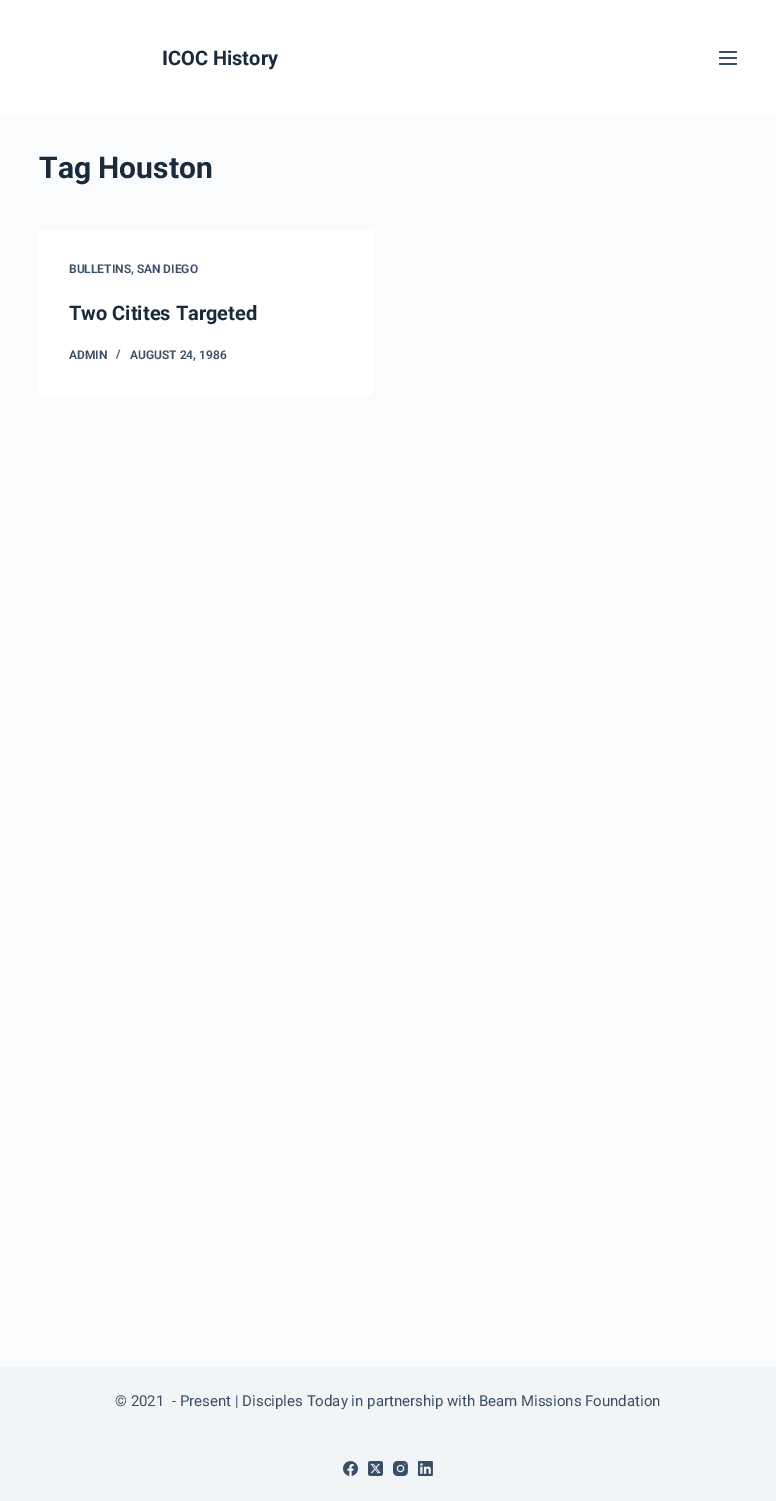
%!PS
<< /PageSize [776 1501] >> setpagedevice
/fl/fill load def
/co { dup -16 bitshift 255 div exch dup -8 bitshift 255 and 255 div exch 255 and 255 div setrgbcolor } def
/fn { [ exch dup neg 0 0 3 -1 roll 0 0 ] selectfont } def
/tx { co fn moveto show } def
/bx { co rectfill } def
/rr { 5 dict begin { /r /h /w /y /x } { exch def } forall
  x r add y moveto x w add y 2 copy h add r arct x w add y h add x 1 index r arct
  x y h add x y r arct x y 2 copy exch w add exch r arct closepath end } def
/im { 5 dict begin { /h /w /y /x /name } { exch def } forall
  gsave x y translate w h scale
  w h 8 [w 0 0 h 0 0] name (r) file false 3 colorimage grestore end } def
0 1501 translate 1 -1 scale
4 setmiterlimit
0 0 776 1501 16#FAFBFC bx
0 0 776 115 16#FFFFFF bx
16#3A4F66 co
719 51 18 2 1 rr fl
719 57 18 2 1 rr fl
719 63 18 2 1 rr fl
39 230 334 166 16#FFFFFF bx
0 1367 776 134 16#F2F5F7 bx
(media/1.raw) 343 1461 15 15 im
(media/2.raw) 368 1461 15 15 im
(media/3.raw) 393 1461 15 15 im
(media/4.raw) 418 1461 15 15 im
(ICOC History) 162 65 /Roboto-Bold 20 16#192A3D tx
(Tag Houston) 39 178 /Roboto-Bold 30 16#192A3D tx
(BULLETINS, SAN DIEGO) 69 273 /Roboto-SemiBold 12 16#3A4F66 tx
(Two Citites Targeted) 69 320 /Roboto-Bold 20 16#192A3D tx
(ADMIN) 69 359 /Roboto-SemiBold 12 16#3A4F66 tx
(/) 116 358 /Roboto-SemiBold 12 16#3A4F66 tx
(AUGUST 24, 1986) 130 359 /Roboto-SemiBold 12 16#3A4F66 tx
(© 2021) 115 1406 /Roboto-Regular 15 16#3A4F66 tx
(- Present | Disciples Today in partnership with Beam Missions Foundation) 172 1406 /Roboto-Regular 15 16#3A4F66 tx
showpage
